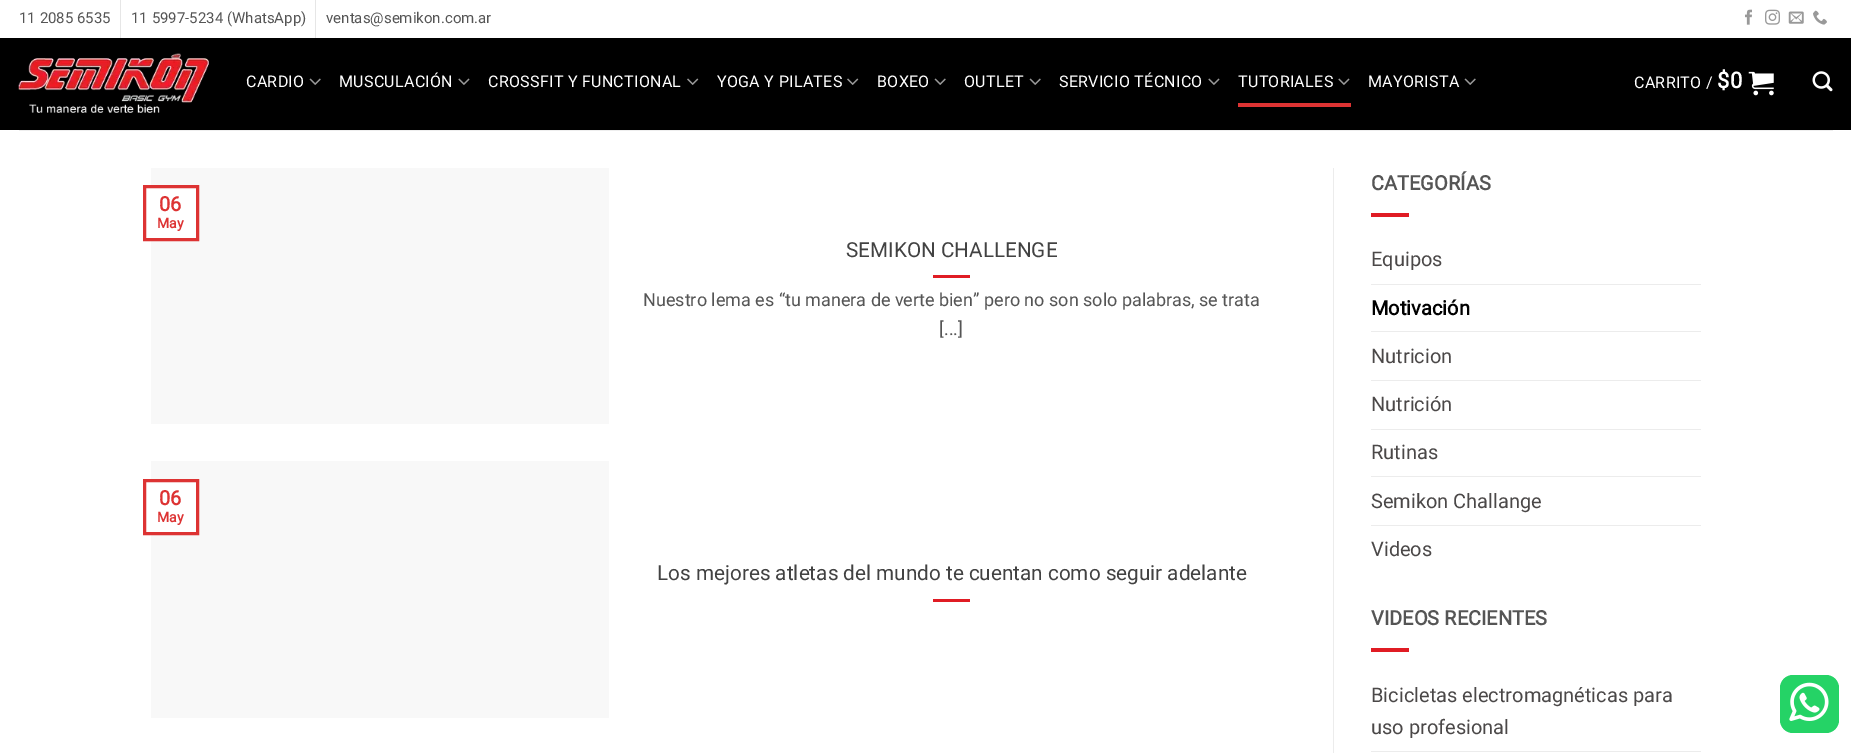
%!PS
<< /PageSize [1851 753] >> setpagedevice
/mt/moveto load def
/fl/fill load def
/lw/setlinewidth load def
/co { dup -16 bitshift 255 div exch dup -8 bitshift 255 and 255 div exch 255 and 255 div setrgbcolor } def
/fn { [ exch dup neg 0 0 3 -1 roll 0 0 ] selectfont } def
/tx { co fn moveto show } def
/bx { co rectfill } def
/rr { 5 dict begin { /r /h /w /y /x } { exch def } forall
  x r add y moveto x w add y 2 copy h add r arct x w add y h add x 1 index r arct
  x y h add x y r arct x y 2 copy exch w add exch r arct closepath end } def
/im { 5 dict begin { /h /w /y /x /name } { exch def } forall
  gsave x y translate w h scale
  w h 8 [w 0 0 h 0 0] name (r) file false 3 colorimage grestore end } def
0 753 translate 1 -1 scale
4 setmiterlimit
0 0 1851 753 16#FFFFFF bx
120 0 1 38 16#E6E6E6 bx
315 0 1 38 16#E6E6E6 bx
(media/1.raw) 1745 9 7 16 im
(media/2.raw) 1765 9 15 16 im
(media/3.raw) 1788 11 16 13 im
(media/4.raw) 1813 10 14 15 im
0 38 1851 92 16#000000 bx
(media/5.raw) 18 53 191 60 im
(media/6.raw) 309 78 12 7 im
(media/7.raw) 458 78 12 7 im
(media/8.raw) 687 78 12 7 im
(media/8.raw) 847 78 12 7 im
(media/6.raw) 934 78 12 7 im
(media/6.raw) 1029 78 12 7 im
(media/7.raw) 1208 78 12 7 im
(media/7.raw) 1338 78 12 7 im
1238 103 113 4 16#DD3333 bx
(media/6.raw) 1464 78 12 7 im
(media/9.raw) 1748 71 26 25 im
(media/10.raw) 1812 71 21 21 im
19 130 1814 1 16#EEEEEE bx
151 168 458 256 16#F8F8F8 bx
151 188 45 50 16#FFFFFF bx
16#DD3333 co
3 lw
144.5 186.5 53 53 rectstroke
933 275 37 3 16#E01C24 bx
151 461 458 257 16#F8F8F8 bx
151 482 45 50 16#FFFFFF bx
16#DD3333 co
144.5 480.5 53 53 rectstroke
933 599 37 3 16#E01C24 bx
1333 168 1 585 16#ECECEC bx
1371 213 38 4 16#E01C24 bx
1371 284 330 1 16#ECECEC bx
1371 331 330 1 16#ECECEC bx
1371 380 330 1 16#ECECEC bx
1371 429 330 1 16#ECECEC bx
1371 476 330 1 16#ECECEC bx
1371 525 330 1 16#ECECEC bx
1371 648 38 4 16#E01C24 bx
1371 751 330 1 16#ECECEC bx
16#25D366 co
1780 675 59 58 13 rr fl
(media/11.raw) 1789 682 40 39 im
(11 2085 6535) 19 23 /Roboto-Regular 15 16#555555 tx
(11 5997-5234 \(WhatsApp\)) 131 23 /Roboto-Regular 15 16#555555 tx
(ventas@semikon.com.ar) 326 23 /Roboto-Regular 15 16#555555 tx
/Roboto-Regular 16 fn
16#FFFFFF co
246 87 mt .3 0 (CARDIO) ashow
339 87 mt .3 0 (MUSCULACIÓN) ashow
488 87 mt .3 0 (CROSSFIT Y FUNCTIONAL) ashow
717 87 mt .3 0 (YOGA Y PILATES) ashow
877 87 mt .3 0 (BOXEO) ashow
964 87 mt .3 0 (OUTLET) ashow
1059 87 mt .3 0 (SERVICIO TÉCNICO) ashow
1238 87 mt .3 0 (TUTORIALES) ashow
1368 87 mt .3 0 (MAYORISTA) ashow
1634 88 mt .3 0 (CARRITO /) ashow
/Roboto-Bold 22 fn
1717 88 mt .3 0 ($0) ashow
(06) 159 211 /Roboto-Bold 20 16#DD3333 tx
(May) 157 228 /Roboto-Bold 14 16#DD3333 tx
(SEMIKON CHALLENGE) 846 257 /Roboto-Regular 20.7 16#424242 tx
(Nuestro lema es “tu manera de verte bien” pero no son solo palabras, se trata) 643 306 /Roboto-Regular 18 16#555555 tx
([...]) 939 335 /Roboto-Regular 18 16#555555 tx
(06) 159 505 /Roboto-Bold 20 16#DD3333 tx
(May) 157 522 /Roboto-Bold 14 16#DD3333 tx
(Los mejores atletas del mundo te cuentan como seguir adelante) 657 580 /Roboto-Regular 20.7 16#424242 tx
(CATEGORÍAS) 1371 190 /Roboto-Bold 20 16#555555 tx
(Equipos) 1371 266 /Roboto-Regular 20 16#4B4848 tx
(Motivación) 1371 315 /Roboto-Bold 20 16#000000 tx
(Nutricion) 1371 363 /Roboto-Regular 20 16#4B4848 tx
(Nutrición) 1371 411 /Roboto-Regular 20 16#4B4848 tx
(Rutinas) 1371 459 /Roboto-Regular 20 16#4B4848 tx
(Semikon Challange) 1371 508 /Roboto-Regular 20 16#4B4848 tx
(Videos) 1371 556 /Roboto-Regular 20 16#4B4848 tx
(VIDEOS RECIENTES) 1371 625 /Roboto-Bold 20 16#555555 tx
(Bicicletas electromagnéticas para) 1371 702 /Roboto-Regular 20 16#4B4848 tx
(uso profesional) 1371 734 /Roboto-Regular 20 16#4B4848 tx
showpage
